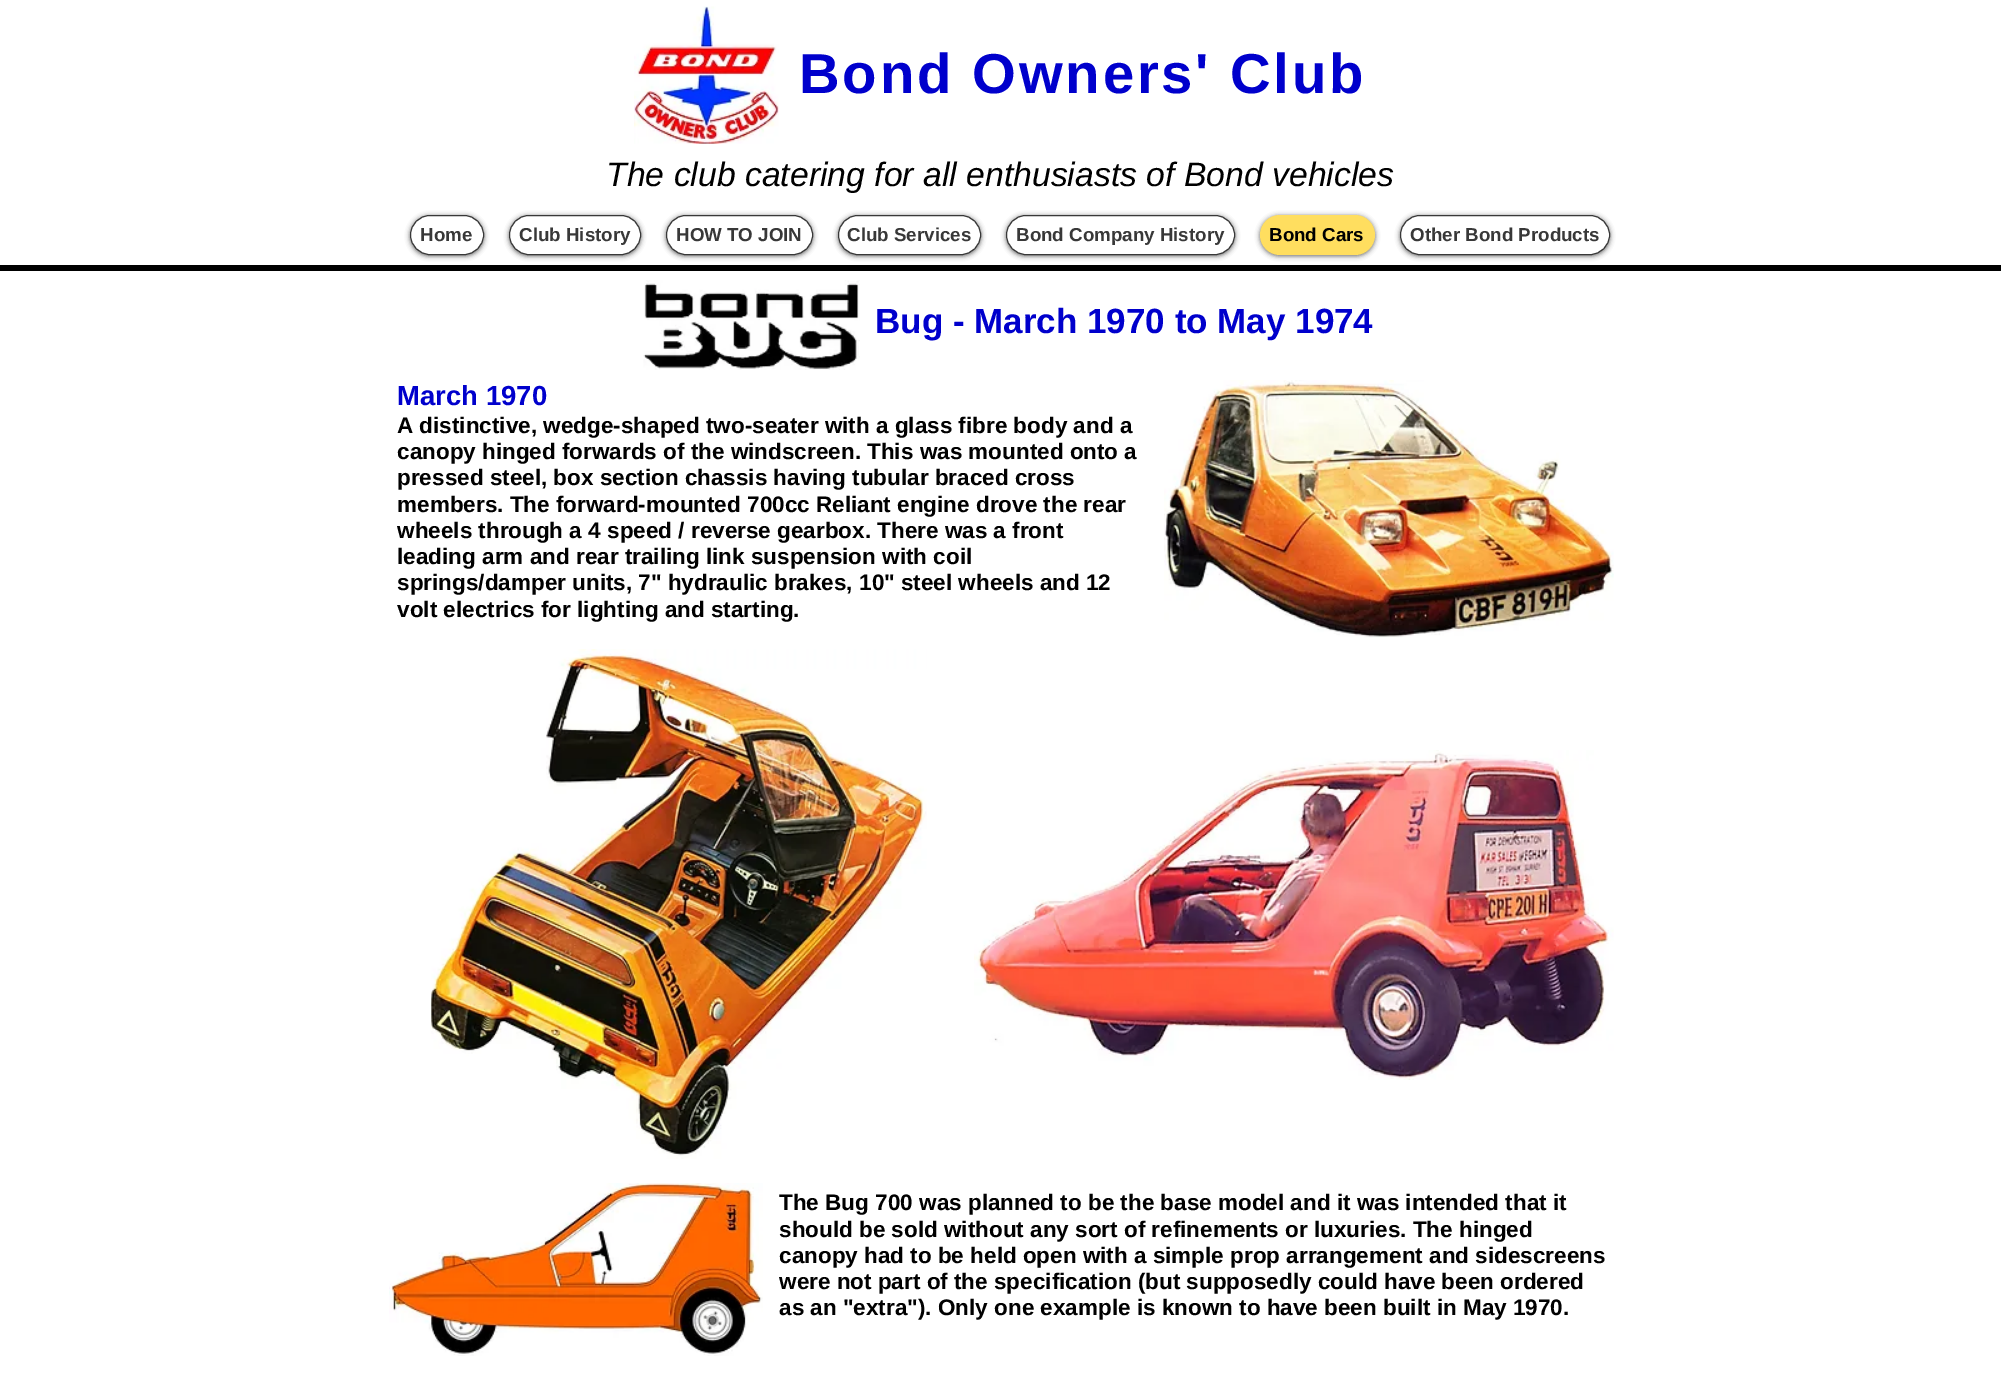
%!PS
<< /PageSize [2001 1378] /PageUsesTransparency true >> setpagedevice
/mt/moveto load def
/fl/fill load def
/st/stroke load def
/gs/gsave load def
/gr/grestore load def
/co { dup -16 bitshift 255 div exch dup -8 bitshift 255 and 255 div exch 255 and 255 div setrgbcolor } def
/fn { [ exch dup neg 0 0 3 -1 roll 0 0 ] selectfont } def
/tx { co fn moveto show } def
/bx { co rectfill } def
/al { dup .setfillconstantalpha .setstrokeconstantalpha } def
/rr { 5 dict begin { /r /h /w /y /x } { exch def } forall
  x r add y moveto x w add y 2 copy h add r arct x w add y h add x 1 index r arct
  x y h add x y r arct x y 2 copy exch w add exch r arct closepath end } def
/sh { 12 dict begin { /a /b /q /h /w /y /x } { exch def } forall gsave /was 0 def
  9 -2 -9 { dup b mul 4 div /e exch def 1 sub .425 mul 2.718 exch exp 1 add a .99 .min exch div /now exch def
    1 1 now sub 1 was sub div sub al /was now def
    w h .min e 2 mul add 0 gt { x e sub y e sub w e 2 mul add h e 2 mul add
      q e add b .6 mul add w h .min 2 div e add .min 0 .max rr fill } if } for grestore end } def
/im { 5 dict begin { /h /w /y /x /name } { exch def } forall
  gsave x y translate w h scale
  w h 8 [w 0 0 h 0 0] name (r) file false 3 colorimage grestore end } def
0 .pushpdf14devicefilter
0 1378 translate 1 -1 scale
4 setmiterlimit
0 0 2001 1378 16#FFFFFF bx
(media/1.raw) 634 6 145 138 im
16#000000 co
410 216 74 40 20 2.5 .6 sh
16#FFFFFF co
410.5 215.5 73 39 19.5 rr gs fl gr
16#383838 co
st
16#000000 co
509 216 132 40 20 2.5 .6 sh
16#FFFFFF co
509.5 215.5 131 39 19.5 rr gs fl gr
16#383838 co
st
16#000000 co
666 216 147 40 20 2.5 .6 sh
16#FFFFFF co
666.5 215.5 146 39 19.5 rr gs fl gr
16#383838 co
st
16#000000 co
838 216 143 40 20 2.5 .6 sh
16#FFFFFF co
838.5 215.5 142 39 19.5 rr gs fl gr
16#383838 co
st
16#000000 co
1006 216 229 40 20 2.5 .6 sh
16#FFFFFF co
1006.5 215.5 228 39 19.5 rr gs fl gr
16#383838 co
st
16#000000 co
1260 216 115 40 20 2.5 .6 sh
16#FFDE5F co
1260 215 115 40 20 rr fl
16#000000 co
1400 216 210 40 20 2.5 .6 sh
16#FFFFFF co
1400.5 215.5 209 39 19.5 rr gs fl gr
16#383838 co
st
0 265 2001 6 16#000000 bx
(media/2.raw) 643 280 217 90 im
(media/3.raw) 1164 380 450 258 im
(media/4.raw) 430 649 497 510 im
(media/5.raw) 974 750 640 330 im
(media/6.raw) 389 1183 374 173 im
/LiberationSans-Bold 56.25 fn
16#0000CC co
799 93 mt 2.8 0 (Bond Owners' Club) ashow
(The club catering for all enthusiasts of Bond vehicles) 606 186 /LiberationSans-Italic 33.75 16#000000 tx
(Home) 420 241 /LiberationSans-Bold 18.75 16#383838 tx
(Club History) 519 241 /LiberationSans-Bold 18.75 16#383838 tx
(HOW TO JOIN) 676 241 /LiberationSans-Bold 18.75 16#383838 tx
(Club Services) 847 241 /LiberationSans-Bold 18.75 16#383838 tx
(Bond Company History) 1016 241 /LiberationSans-Bold 18.75 16#383838 tx
(Bond Cars) 1269 241 /LiberationSans-Bold 18.75 16#000000 tx
(Other Bond Products) 1410 241 /LiberationSans-Bold 18.75 16#383838 tx
(Bug - March 1970 to May 1974) 875 333 /LiberationSans-Bold 35 16#0000CC tx
(March 1970) 397 405 /LiberationSans-Bold 27.5 16#0000CC tx
(A distinctive, wedge-shaped two-seater with a glass fibre body and a) 397 433 /LiberationSans-Bold 22.5 16#000000 tx
(canopy hinged forwards of the windscreen. This was mounted onto a) 397 459 /LiberationSans-Bold 22.5 16#000000 tx
(pressed steel, box section chassis having tubular braced cross) 397 485 /LiberationSans-Bold 22.5 16#000000 tx
(members. The forward-mounted 700cc Reliant engine drove the rear) 397 512 /LiberationSans-Bold 22.5 16#000000 tx
(wheels through a 4 speed / reverse gearbox. There was a front) 397 538 /LiberationSans-Bold 22.5 16#000000 tx
(leading arm and rear trailing link suspension with coil) 397 564 /LiberationSans-Bold 22.5 16#000000 tx
(springs/damper units, 7" hydraulic brakes, 10" steel wheels and 12) 397 590 /LiberationSans-Bold 22.5 16#000000 tx
(volt electrics for lighting and starting.) 397 617 /LiberationSans-Bold 22.5 16#000000 tx
(The Bug 700 was planned to be the base model and it was intended that it) 779 1210 /LiberationSans-Bold 22.5 16#000000 tx
(should be sold without any sort of refinements or luxuries. The hinged) 779 1237 /LiberationSans-Bold 22.5 16#000000 tx
(canopy had to be held open with a simple prop arrangement and sidescreens) 779 1263 /LiberationSans-Bold 22.5 16#000000 tx
(were not part of the specification \(but supposedly could have been ordered) 779 1289 /LiberationSans-Bold 22.5 16#000000 tx
(as an "extra"\). Only one example is known to have been built in May 1970.) 779 1315 /LiberationSans-Bold 22.5 16#000000 tx
.poppdf14devicefilter showpage
